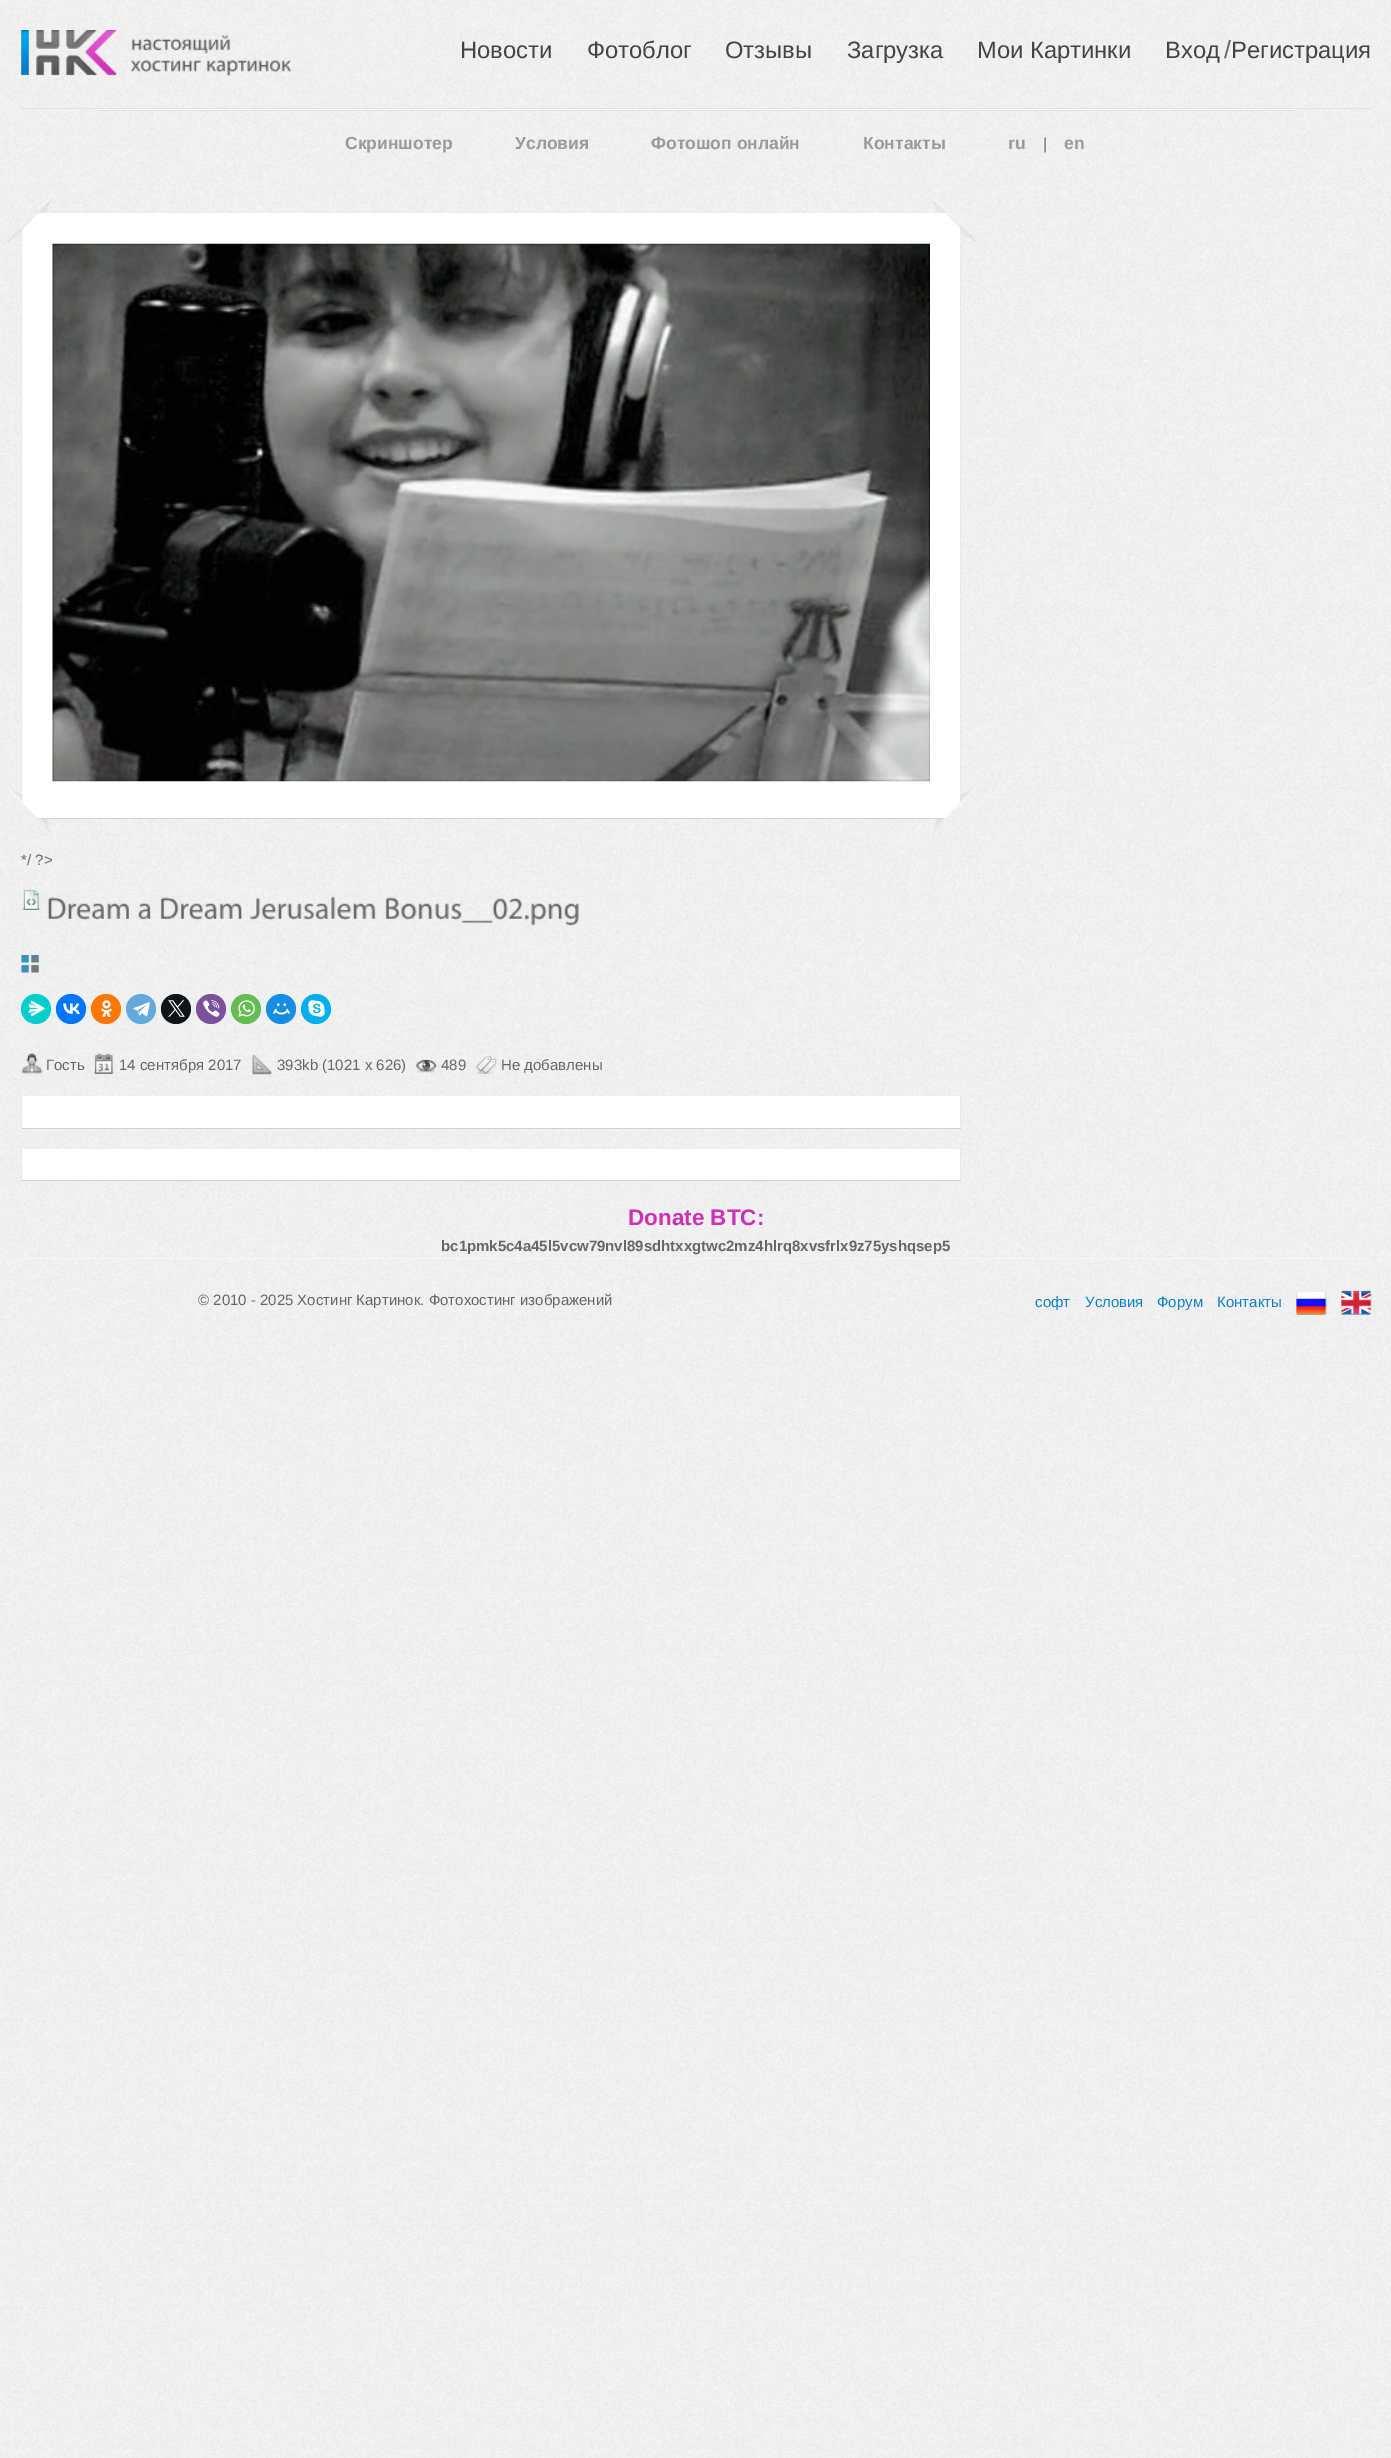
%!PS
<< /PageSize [1391 2458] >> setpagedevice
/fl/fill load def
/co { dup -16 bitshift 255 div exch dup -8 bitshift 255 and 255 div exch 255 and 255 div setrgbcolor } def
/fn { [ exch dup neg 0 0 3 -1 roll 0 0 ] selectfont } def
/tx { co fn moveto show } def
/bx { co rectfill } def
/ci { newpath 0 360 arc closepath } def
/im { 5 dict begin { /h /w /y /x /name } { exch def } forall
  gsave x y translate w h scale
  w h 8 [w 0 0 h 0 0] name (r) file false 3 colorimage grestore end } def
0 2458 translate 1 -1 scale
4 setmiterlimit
0 0 1391 2458 16#FFFFFF bx
(media/1.raw) 0 0 1391 2458 im
21 108 1350 1 16#E2E2E2 bx
(media/2.raw) 21 30 96 47 im
(media/3.raw) 131 35 100 19 im
(media/4.raw) 131 60 71 12 im
(media/5.raw) 206 59 86 18 im
96 109 1200 1 16#F7F7F7 bx
96 110 1200 1 16#E2E2E2 bx
22 213 938 605 16#FFFFFF bx
21 243 1 546 16#E8E8E8 bx
(media/8.raw) 52 243 878 539 im
(media/6.raw) 6 197 47 47 im
960 224 1 581 16#E8E8E8 bx
(media/7.raw) 930 197 46 47 im
34 818 914 1 16#D0D0D0 bx
(media/9.raw) 6 789 46 46 im
(media/10.raw) 930 789 46 46 im
(media/11.raw) 21 890 20 20 im
(media/12.raw) 47 897 83 23 im
(media/13.raw) 138 903 14 17 im
(media/14.raw) 160 897 82 23 im
(media/15.raw) 249 896 127 25 im
(media/16.raw) 385 897 194 29 im
(media/17.raw) 21 955 18 18 im
16#03CECE co
36 1009 15 ci fl
(media/18.raw) 28 1000 17 17 im
16#0077FF co
71 1009 15 ci fl
(media/19.raw) 63 1003 17 11 im
16#FF7700 co
106 1009 15 ci fl
(media/20.raw) 101 1000 12 17 im
16#64A9DC co
141 1009 15 ci fl
(media/21.raw) 133 1002 17 15 im
16#0F1419 co
176 1009 15 ci fl
(media/22.raw) 168 1000 17 17 im
16#7B519D co
211 1009 15 ci fl
(media/23.raw) 203 1000 17 17 im
16#65BC54 co
246 1009 15 ci fl
(media/24.raw) 238 1000 17 17 im
16#168DE2 co
281 1009 15 ci fl
(media/25.raw) 273 1003 17 12 im
16#00AFF0 co
316 1009 15 ci fl
(media/26.raw) 308 1000 17 17 im
(media/27.raw) 21 1053 22 21 im
(media/28.raw) 93 1053 21 21 im
(media/29.raw) 252 1055 20 20 im
(media/30.raw) 416 1059 21 14 im
(media/31.raw) 476 1056 21 18 im
22 1096 938 32 16#FFFFFF bx
960 1096 1 33 16#E8E8E8 bx
21 1128 940 1 16#D0D0D0 bx
21 1096 1 33 16#E8E8E8 bx
22 1149 938 31 16#FFFFFF bx
960 1149 1 32 16#E8E8E8 bx
21 1180 940 1 16#D0D0D0 bx
21 1149 1 32 16#E8E8E8 bx
21 1258 1350 1 16#F7F7F7 bx
(media/32.raw) 1296 1291 31 24 im
(media/33.raw) 1341 1290 31 25 im
(Новости) 460 58 /LiberationSans-Regular 23.75 16#444444 tx
(Фотоблог) 587 58 /LiberationSans-Regular 23.75 16#444444 tx
(Отзывы) 725 58 /LiberationSans-Regular 23.75 16#444444 tx
(Загрузка) 847 58 /LiberationSans-Regular 23.75 16#444444 tx
(Мои Картинки) 977 58 /LiberationSans-Regular 23.75 16#444444 tx
(Вход) 1165 58 /LiberationSans-Regular 23.75 16#444444 tx
(/) 1224 58 /LiberationSans-Regular 25 16#666666 tx
(Регистрация) 1231 58 /LiberationSans-Regular 23.75 16#444444 tx
(Скриншотер) 345 149 /LiberationSans-Bold 17.5 16#999999 tx
(Условия) 515 149 /LiberationSans-Bold 17.5 16#999999 tx
(Фотошоп онлайн) 651 149 /LiberationSans-Bold 17.5 16#999999 tx
(Контакты) 863 149 /LiberationSans-Bold 17.5 16#999999 tx
(ru) 1008 149 /LiberationSans-Bold 17.5 16#999999 tx
(|) 1043 149 /LiberationSans-Regular 16 16#666666 tx
(en) 1064 149 /LiberationSans-Bold 17.5 16#999999 tx
(*/ ?>) 21 865 /LiberationSans-Regular 15 16#666666 tx
(Гость) 46 1070 /LiberationSans-Regular 15 16#666666 tx
(14 сентября 2017) 119 1070 /LiberationSans-Regular 15 16#666666 tx
(393kb \(1021 x 626\)) 277 1070 /LiberationSans-Regular 15 16#666666 tx
(489) 441 1070 /LiberationSans-Regular 15 16#666666 tx
(Не добавлены) 501 1070 /LiberationSans-Regular 15 16#666666 tx
(Donate BTC:) 628 1225 /LiberationSans-Bold 22.5 16#CD31B9 tx
(bc1pmk5c4a45l5vcw79nvl89sdhtxxgtwc2mz4hlrq8xvsfrlx9z75yshqsep5) 441 1251 /LiberationSans-Bold 15 16#666666 tx
(© 2010 - 2025 Хостинг Картинок. Фотохостинг изображений) 198 1305 /LiberationSans-Regular 15 16#666666 tx
(софт) 1035 1307 /LiberationSans-Regular 15 16#0F80C8 tx
(Условия) 1085 1307 /LiberationSans-Regular 15 16#0F80C8 tx
(Форум) 1157 1307 /LiberationSans-Regular 15 16#0F80C8 tx
(Контакты) 1217 1307 /LiberationSans-Regular 15 16#0F80C8 tx
showpage
